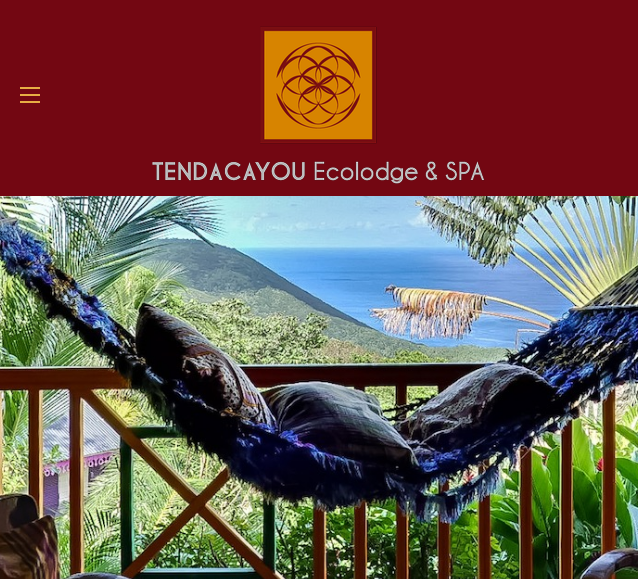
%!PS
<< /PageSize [638 579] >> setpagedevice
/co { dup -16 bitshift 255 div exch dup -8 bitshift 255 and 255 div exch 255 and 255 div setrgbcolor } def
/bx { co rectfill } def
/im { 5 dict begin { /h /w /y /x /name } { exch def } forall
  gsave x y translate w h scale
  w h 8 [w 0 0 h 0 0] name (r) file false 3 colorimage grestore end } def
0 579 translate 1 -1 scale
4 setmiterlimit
0 0 638 579 16#FFFFFF bx
0 0 638 196 16#730712 bx
20 87 20 2 16#E7AD44 bx
20 94 20 2 16#E7AD44 bx
20 101 20 2 16#E7AD44 bx
(media/1.raw) 152 26 333 158 im
(media/2.raw) 0 196 638 383 im
showpage
